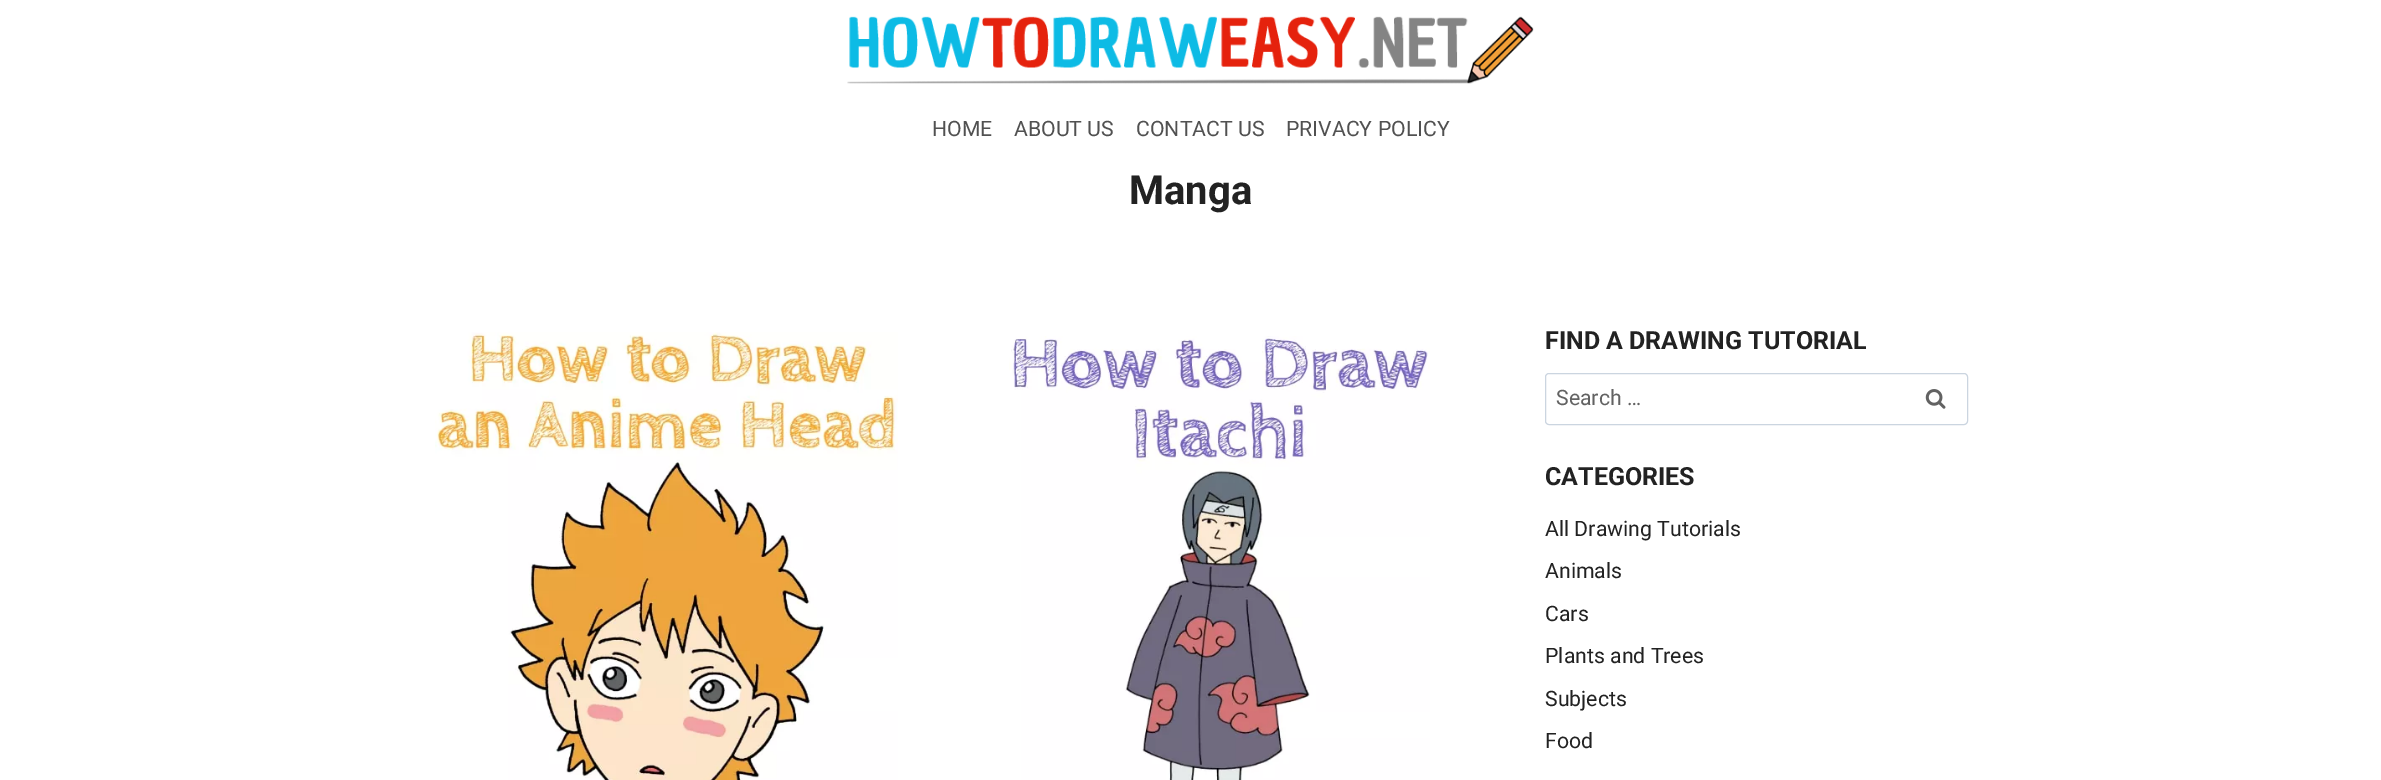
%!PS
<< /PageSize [2381 780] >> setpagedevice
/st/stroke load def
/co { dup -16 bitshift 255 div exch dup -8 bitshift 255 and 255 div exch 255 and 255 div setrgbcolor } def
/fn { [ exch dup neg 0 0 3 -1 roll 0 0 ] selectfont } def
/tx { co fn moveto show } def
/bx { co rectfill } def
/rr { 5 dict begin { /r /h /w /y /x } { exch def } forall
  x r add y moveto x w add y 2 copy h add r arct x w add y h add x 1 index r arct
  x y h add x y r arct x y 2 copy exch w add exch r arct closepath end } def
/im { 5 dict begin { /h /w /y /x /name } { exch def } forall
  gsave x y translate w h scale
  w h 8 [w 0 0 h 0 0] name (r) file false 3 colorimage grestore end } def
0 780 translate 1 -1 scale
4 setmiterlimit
0 0 2381 780 16#FFFFFF bx
(media/1.raw) 847 16 687 68 im
(media/2.raw) 435 332 463 448 im
(media/3.raw) 1009 336 421 444 im
16#CBD5E0 co
1545.5 373.5 422 51 3.5 rr st
(media/4.raw) 1925 389 21 20 im
(HOME) 932 136 /Roboto-Regular 21.25 16#515151 tx
(ABOUT US) 1014 136 /Roboto-Regular 21.25 16#515151 tx
(CONTACT US) 1136 136 /Roboto-Regular 21.25 16#515151 tx
(PRIVACY POLICY) 1286 136 /Roboto-Regular 21.25 16#515151 tx
(Manga) 1129 204 /Roboto-Bold 40 16#222222 tx
(FIND A DRAWING TUTORIAL) 1545 349 /Roboto-Bold 25 16#222222 tx
(Search …) 1556 405 /Roboto-Regular 21.25 16#626262 tx
(CATEGORIES) 1545 485 /Roboto-Bold 25 16#222222 tx
(All Drawing Tutorials) 1545 536 /Roboto-Regular 21.25 16#222222 tx
(Animals) 1545 578 /Roboto-Regular 21.25 16#222222 tx
(Cars) 1545 621 /Roboto-Regular 21.25 16#222222 tx
(Plants and Trees) 1545 663 /Roboto-Regular 21.25 16#222222 tx
(Subjects) 1545 706 /Roboto-Regular 21.25 16#222222 tx
(Food) 1545 748 /Roboto-Regular 21.25 16#222222 tx
showpage
